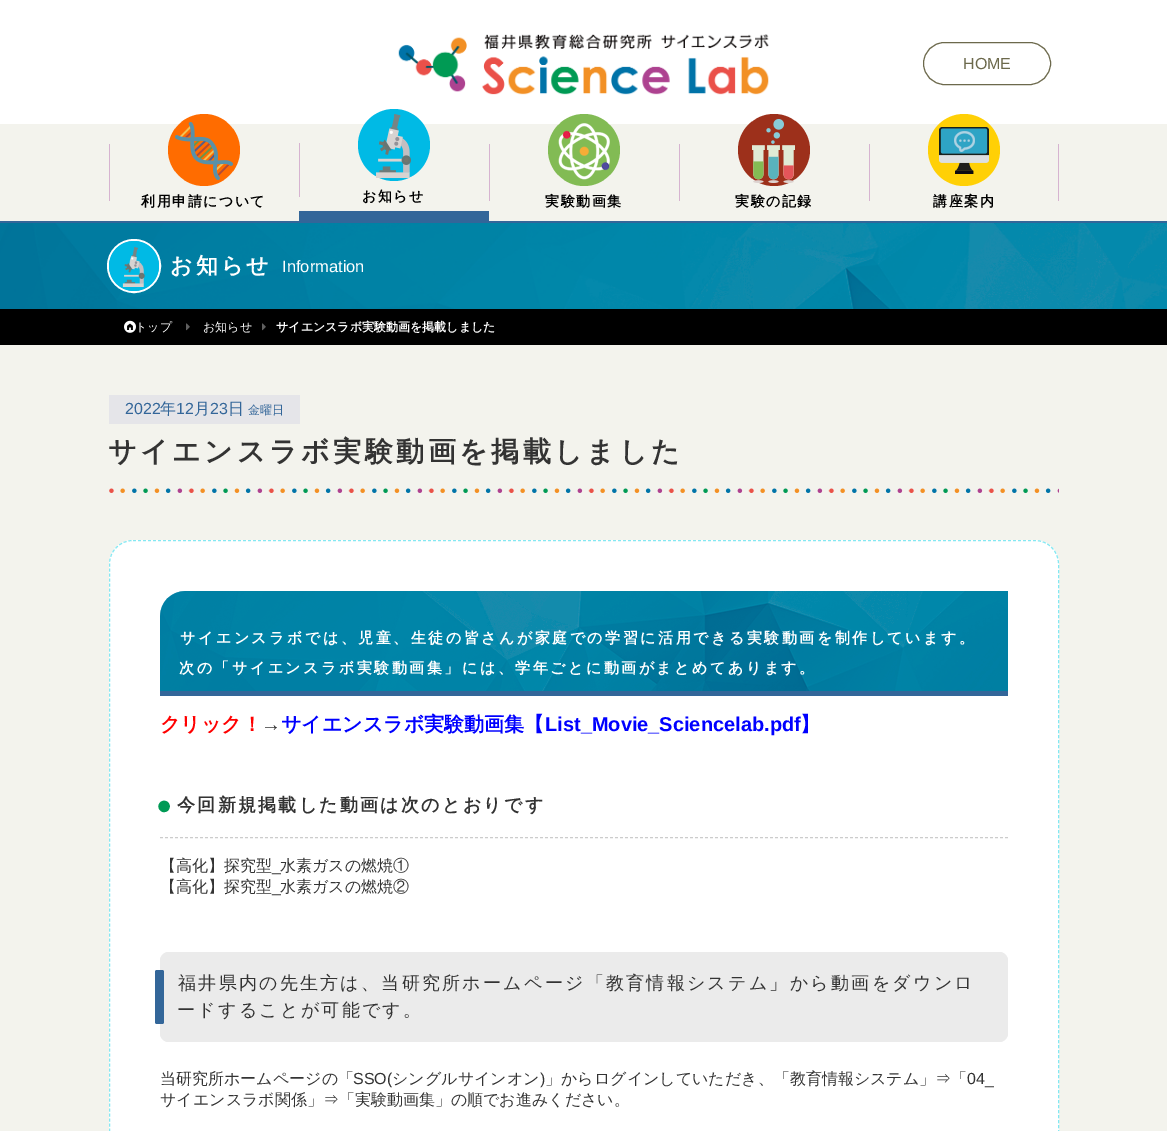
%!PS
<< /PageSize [1167 1131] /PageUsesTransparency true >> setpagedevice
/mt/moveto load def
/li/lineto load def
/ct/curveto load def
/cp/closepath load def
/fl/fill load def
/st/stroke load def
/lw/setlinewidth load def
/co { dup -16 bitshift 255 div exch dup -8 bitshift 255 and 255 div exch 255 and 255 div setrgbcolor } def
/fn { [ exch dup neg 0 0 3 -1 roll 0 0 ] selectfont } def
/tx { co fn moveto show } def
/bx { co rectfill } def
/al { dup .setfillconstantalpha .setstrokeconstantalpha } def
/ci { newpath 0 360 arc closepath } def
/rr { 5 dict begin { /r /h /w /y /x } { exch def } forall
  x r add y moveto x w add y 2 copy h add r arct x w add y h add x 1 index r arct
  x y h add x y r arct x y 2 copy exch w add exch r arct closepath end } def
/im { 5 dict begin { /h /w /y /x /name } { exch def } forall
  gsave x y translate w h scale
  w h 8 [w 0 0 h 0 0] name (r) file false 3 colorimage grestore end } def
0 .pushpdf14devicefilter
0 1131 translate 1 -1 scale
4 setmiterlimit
0 0 1167 1131 16#F3F3ED bx
0 0 1167 124 16#FFFFFF bx
0 221 1167 2 16#336699 bx
(media/1.raw) 398 34 371 61 im
16#6C694C co
923.5 42.5 127 42 21 rr st
109 144 1 57 16#D6B3D0 bx
16#FF6C00 co
204 150 36 ci fl
(media/2.raw) 175 122 58 58 im
299 143 1 54 16#D6B3D0 bx
16#00BAE5 co
394 145 36 ci fl
(media/3.raw) 376 114 35 64 im
299 211 190 10 16#336699 bx
489 144 1 57 16#D6B3D0 bx
16#82BB54 co
584 150 36 ci fl
(media/4.raw) 558 123 52 57 im
679 144 1 57 16#D6B3D0 bx
16#9D301B co
774 150 36 ci fl
(media/5.raw) 752 119 43 64 im
869 144 1 57 16#D6B3D0 bx
16#FFD006 co
964 150 36 ci fl
(media/6.raw) 939 127 50 47 im
1058 144 1 57 16#D6B3D0 bx
(media/7.raw) 0 223 1167 86 im
16#FFFFFF co
2 lw
134 266 26 ci st
16#00BAE5 co
134 266 25 ci fl
(media/8.raw) 122 247 23 40 im
0 309 1167 36 16#000000 bx
(media/9.raw) 124 320 12 13 im
(media/10.raw) 186 323 4 8 im
(media/10.raw) 262 323 4 8 im
109 395 191 29 16#E5E5E9 bx
(media/11.raw) 109 488 950 5 im
16#FFFFFF co
109 540 950 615 24 rr fl
0.5 al
16#0AD2E6 co
1 lw
[3 2] 0 setdash
133 540.5 mt 1035 540.5 li 1048 540.5 1058.5 551 1058.5 564 ct 1058.5 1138 li 1058.5 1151 1048 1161.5 1035 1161.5 ct 133 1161.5 li 120 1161.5 109.5 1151 109.5 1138 ct 109.5 564 li 109.5 551 120 540.5 133 540.5 ct cp st
1 al
16#77B8CB co
185 591 mt 1008 591 li 1008 696 li 160 696 li 160 616 li 160 602 171 591 185 591 ct cp fl
(media/12.raw) 160 591 848 100 im
160 691 848 5 16#336699 bx
16#CCCCCC co
160 837.5 mt 1008 837.5 li st
16#DFDFDF co
160 952 848 90 9 rr fl
0.5 al
16#F7F7F7 co
160 952 848 90 9 rr fl
1 al
16#336699 co
155 970 9 54 2 rr fl
(HOME) 963 69 /LiberationSans-Regular 16 16#6C694C tx
/WenQuanYiZenHei-Bold 14 fn
16#000000 co
141 206 mt 1.5 0 (利用申請について) ashow
362 201 mt 1.5 0 (お知らせ) ashow
545 206 mt 1.5 0 (実験動画集) ashow
735 206 mt 1.5 0 (実験の記録) ashow
933 206 mt 1.5 0 (講座案内) ashow
/WenQuanYiZenHei-Bold 22 fn
16#FFFFFF co
170 273 mt 3 0 (お知らせ) ashow
(Information) 282 272 /LiberationSans-Regular 16.5 16#FFFFFF tx
(トップ) 135 331 /WenQuanYiZenHei-Medium 12 16#FFFFFF tx
(お知らせ) 203 331 /WenQuanYiZenHei-Medium 12 16#FFFFFF tx
(サイエンスラボ実験動画を掲載しました) 276 331 /WenQuanYiZenHei-Bold 12 16#FFFFFF tx
(2022) 125 414 /LiberationSans-Regular 16 16#336699 tx
(年) 160 414 /WenQuanYiZenHei-Medium 16 16#336699 tx
(12) 176 414 /LiberationSans-Regular 16 16#336699 tx
(月) 194 414 /WenQuanYiZenHei-Medium 16 16#336699 tx
(23) 210 414 /LiberationSans-Regular 16 16#336699 tx
(日) 228 414 /WenQuanYiZenHei-Medium 16 16#336699 tx
(金曜日) 248 414 /WenQuanYiZenHei-Medium 12 16#336699 tx
/WenQuanYiZenHei-Bold 28 fn
16#333333 co
108 461 mt 3.5 0 (サイエンスラボ実験動画を掲載しました) ashow
/WenQuanYiZenHei-Bold 15 fn
16#FFFFFF co
180 643 mt 2.5 0 (サイエンスラボでは、児童、生徒の皆さんが家庭での学習に活用できる実験動画を制作しています。) ashow
179 673 mt 2.5 0 (次の「サイエンスラボ実験動画集」には、学年ごとに動画がまとめてあります。) ashow
(クリック！) 160 731 /WenQuanYiZenHei-Bold 20 16#FF0000 tx
(→) 261 731 /LiberationSans-Bold 20 16#333333 tx
(サイエンスラボ実験動画集【) 281 731 /WenQuanYiZenHei-Bold 20 16#0000FF tx
(List_Movie_Sciencelab.pdf) 545 731 /LiberationSans-Bold 20 16#0000FF tx
(】) 800 731 /WenQuanYiZenHei-Bold 20 16#0000FF tx
/LiberationSans-Bold 27 fn
16#009A55 co
156 814 mt 3 0 (●) ashow
/WenQuanYiZenHei-Bold 18 fn
16#333333 co
177 811 mt 2.25 0 (今回新規掲載した動画は次のとおりです) ashow
(【高化】探究型) 160 871 /WenQuanYiZenHei-Medium 16 16#333333 tx
(_) 272 871 /LiberationSans-Regular 16 16#333333 tx
(水素ガスの燃焼①) 280 871 /WenQuanYiZenHei-Medium 16 16#333333 tx
(【高化】探究型) 160 892 /WenQuanYiZenHei-Medium 16 16#333333 tx
(_) 272 892 /LiberationSans-Regular 16 16#333333 tx
(水素ガスの燃焼②) 280 892 /WenQuanYiZenHei-Medium 16 16#333333 tx
/WenQuanYiZenHei-Medium 18 fn
178 989 mt 2.25 0 (福井県内の先生方は、当研究所ホームページ「教育情報システム」から動画をダウンロ) ashow
177 1016 mt 2.25 0 (ードすることが可能です。) ashow
(当研究所ホームページの「) 160 1084 /WenQuanYiZenHei-Medium 16 16#333333 tx
(SSO\() 353 1084 /LiberationSans-Regular 16 16#333333 tx
(シングルサインオン) 392 1084 /WenQuanYiZenHei-Medium 16 16#333333 tx
(\)) 540 1084 /LiberationSans-Regular 16 16#333333 tx
(」からログインしていただき、「教育情報システム」⇒「) 545 1084 /WenQuanYiZenHei-Medium 16 16#333333 tx
(04_) 967 1084 /LiberationSans-Regular 16 16#333333 tx
(サイエンスラボ関係」⇒「実験動画集」の順でお進みください。) 160 1105 /WenQuanYiZenHei-Medium 16 16#333333 tx
.poppdf14devicefilter showpage
